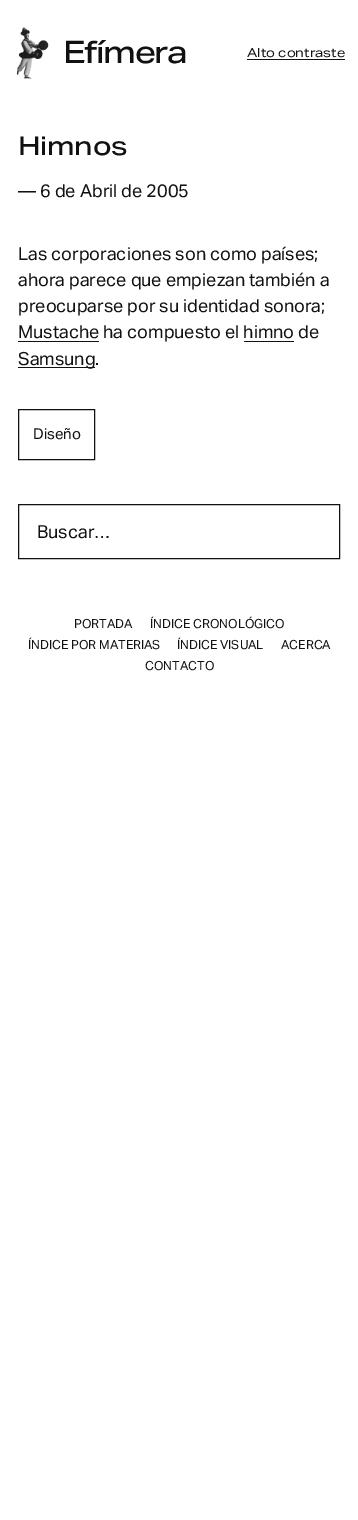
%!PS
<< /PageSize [358 1520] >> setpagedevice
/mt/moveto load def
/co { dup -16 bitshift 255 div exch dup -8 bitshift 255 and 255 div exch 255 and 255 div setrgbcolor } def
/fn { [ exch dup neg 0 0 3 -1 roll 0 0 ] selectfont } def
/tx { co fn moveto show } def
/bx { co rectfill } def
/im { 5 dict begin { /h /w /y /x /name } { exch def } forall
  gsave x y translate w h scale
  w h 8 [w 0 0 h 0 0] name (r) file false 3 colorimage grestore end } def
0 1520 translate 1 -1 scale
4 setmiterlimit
0 0 358 1520 16#FFFFFF bx
(media/1.raw) 16 27 33 52 im
247 59 98 1 16#111111 bx
18 341 81 1 16#111111 bx
244 341 50 1 16#111111 bx
18 367 77 1 16#111111 bx
18.5 409.5 76 50 rectstroke
18.5 504.5 321 54 rectstroke
/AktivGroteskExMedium-Medium 31 fn
63 63 mt -1.5 0 (Efímera) ashow
(Alto contraste) 247 57 /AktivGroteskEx-Regular 12.5 16#111111 tx
/AktivGroteskExMedium-Medium 26 fn
18 155 mt -.25 0 (Himnos) ashow
(— 6 de Abril de 2005) 18 197 /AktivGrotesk-Regular 18 16#111111 tx
(Las corporaciones son como países;) 18 260 /AktivGrotesk-Regular 18 16#111111 tx
(ahora parece que empiezan también a) 18 286 /AktivGrotesk-Regular 18 16#111111 tx
(preocuparse por su identidad sonora;) 18 312 /AktivGrotesk-Regular 18 16#111111 tx
(Mustache ha compuesto el himno de) 18 338 /AktivGrotesk-Regular 18 16#111111 tx
(Samsung.) 18 365 /AktivGrotesk-Regular 18 16#111111 tx
(Diseño) 33 439 /AktivGrotesk-Regular 15 16#111111 tx
(Buscar…) 37 538 /AktivGrotesk-Regular 18 16#111111 tx
(PORTADA) 74 628 /AktivGrotesk-Regular 12.5 16#111111 tx
(ÍNDICE CRONOLÓGICO) 150 628 /AktivGrotesk-Regular 12.5 16#111111 tx
(ÍNDICE POR MATERIAS) 28 649 /AktivGrotesk-Regular 12.5 16#111111 tx
(ÍNDICE VISUAL) 177 649 /AktivGrotesk-Regular 12.5 16#111111 tx
(ACERCA) 281 649 /AktivGrotesk-Regular 12.5 16#111111 tx
(CONTACTO) 145 670 /AktivGrotesk-Regular 12.5 16#111111 tx
showpage
